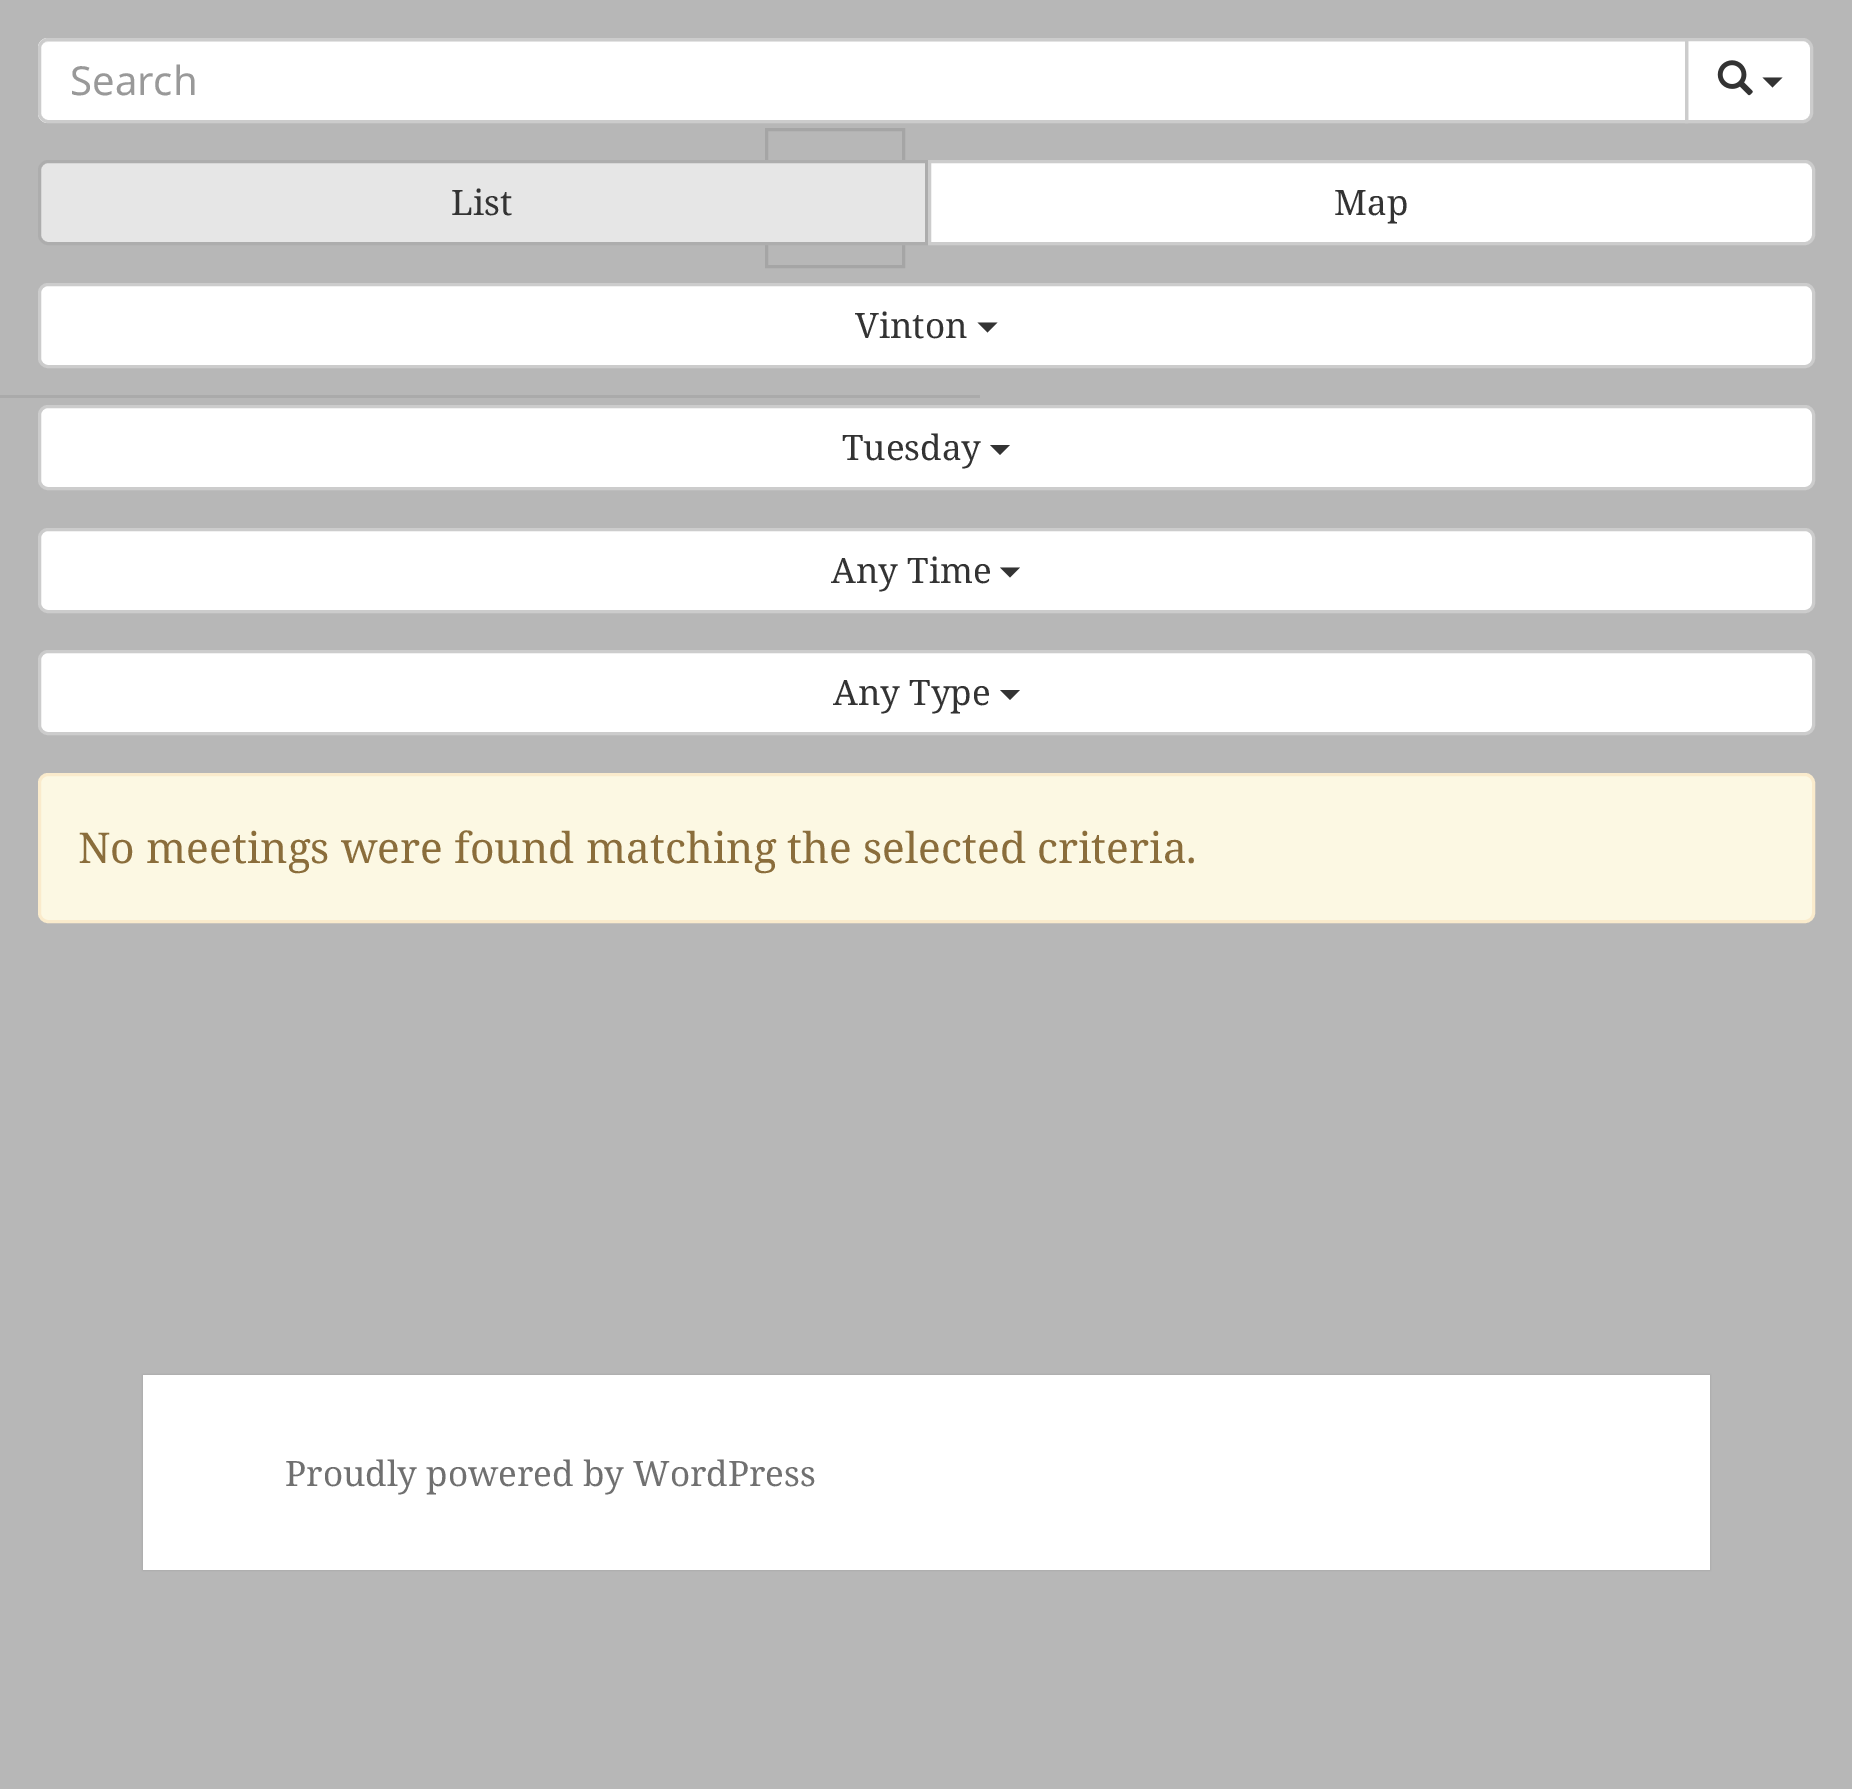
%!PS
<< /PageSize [1852 1789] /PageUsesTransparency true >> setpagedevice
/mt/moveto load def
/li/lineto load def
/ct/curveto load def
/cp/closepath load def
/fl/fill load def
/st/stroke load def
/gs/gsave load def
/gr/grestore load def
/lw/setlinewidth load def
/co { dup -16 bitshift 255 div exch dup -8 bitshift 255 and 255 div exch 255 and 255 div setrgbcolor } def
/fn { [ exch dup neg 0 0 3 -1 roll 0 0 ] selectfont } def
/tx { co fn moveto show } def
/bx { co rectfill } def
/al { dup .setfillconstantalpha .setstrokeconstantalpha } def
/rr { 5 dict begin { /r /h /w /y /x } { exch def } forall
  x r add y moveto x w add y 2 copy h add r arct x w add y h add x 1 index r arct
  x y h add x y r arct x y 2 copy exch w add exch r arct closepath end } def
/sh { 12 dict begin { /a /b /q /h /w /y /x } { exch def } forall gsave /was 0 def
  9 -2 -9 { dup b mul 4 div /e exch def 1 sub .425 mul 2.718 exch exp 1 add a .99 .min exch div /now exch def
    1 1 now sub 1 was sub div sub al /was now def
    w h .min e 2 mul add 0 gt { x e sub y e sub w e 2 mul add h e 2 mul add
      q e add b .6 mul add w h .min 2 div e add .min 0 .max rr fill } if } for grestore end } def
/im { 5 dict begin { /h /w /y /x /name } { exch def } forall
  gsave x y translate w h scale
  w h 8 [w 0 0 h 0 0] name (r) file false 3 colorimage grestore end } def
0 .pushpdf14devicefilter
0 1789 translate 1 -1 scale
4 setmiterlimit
0 0 1852 1789 16#B7B7B7 bx
16#FFFFFF co
1686.5 39.5 mt 1803 39.5 li 1807.5 39.5 1811.5 43.5 1811.5 48 ct 1811.5 113 li 1811.5 117.5 1807.5 121.5 1803 121.5 ct 1686.5 121.5 li cp gs fl gr
16#CCCCCC co
3 lw
st
16#FFFFFF co
48 38 mt 1688 38 li 1688 123 li 48 123 li 42.5 123 38 118.5 38 113 ct 38 48 li 38 42.5 42.5 38 48 38 ct cp fl
16#ECECEC co
48 42 mt 1685 42 li 1685 40 li 48 40 li 42 40 40 45 40 50 ct 40 46 43 42 48 42 ct cp fl
16#CCCCCC co
48 39.5 mt 1686.5 39.5 li 1686.5 121.5 li 48 121.5 li 43.5 121.5 39.5 117.5 39.5 113 ct 39.5 48 li 39.5 43.5 43.5 39.5 48 39.5 ct cp st
(media/1.raw) 1717 60 36 36 im
16#333333 co
1762.5 77.5 mt 1782.5 77.5 li 1772.5 87.5 li cp fl
16#A5A5A5 co
766.5 129.5 137 137 rectstroke
16#E6E6E6 co
48 161.5 mt 926.5 161.5 li 926.5 243.5 li 48 243.5 li 43.5 243.5 39.5 239.5 39.5 235 ct 39.5 170 li 39.5 165.5 43.5 161.5 48 161.5 ct cp gs fl gr
16#ADADAD co
st
16#FFFFFF co
929.5 161.5 mt 1805 161.5 li 1809.5 161.5 1813.5 165.5 1813.5 170 ct 1813.5 235 li 1813.5 239.5 1809.5 243.5 1805 243.5 ct 929.5 243.5 li cp gs fl gr
16#CCCCCC co
st
16#FFFFFF co
39.5 284.5 1774 82 8.5 rr gs fl gr
16#CCCCCC co
st
16#333333 co
977.5 322.5 mt 997.5 322.5 li 987.5 332.5 li cp fl
16#FFFFFF co
39.5 406.5 1774 82 8.5 rr gs fl gr
16#CCCCCC co
st
16#333333 co
990 445 mt 1010 445 li 1000 455 li cp fl
16#FFFFFF co
39.5 529.5 1774 82 8.5 rr gs fl gr
16#CCCCCC co
st
16#333333 co
1000 567.5 mt 1020 567.5 li 1010 577.5 li cp fl
16#FFFFFF co
39.5 651.5 1774 82 8.5 rr gs fl gr
16#CCCCCC co
st
16#333333 co
1000 690 mt 1020 690 li 1010 700 li cp fl
16#FCF8E3 co
39.5 774.5 1774 147 8.5 rr gs fl gr
16#FAEBCC co
st
0 395 980 3 16#AAAAAA bx
16#000000 co
143 1375 1567 195 0 1 .15 sh
143 1375 1567 195 16#FFFFFF bx
(Search) 70 95 /NotoSans-Regular 40 16#999999 tx
(List) 451 215 /NotoSerif-Regular 35 16#333333 tx
(Map) 1334 215 /NotoSerif-Regular 35 16#333333 tx
(Vinton) 855 338 /NotoSerif-Regular 35 16#333333 tx
(Tuesday) 842 460 /NotoSerif-Regular 35 16#333333 tx
(Any Time) 831 583 /NotoSerif-Regular 35 16#333333 tx
(Any Type) 833 705 /NotoSerif-Regular 35 16#333333 tx
(No meetings were found matching the selected criteria.) 78 863 /NotoSerif-Regular 42.5 16#8A6D3B tx
(Proudly powered by WordPress) 285 1486 /NotoSerif-Regular 35 16#707070 tx
.poppdf14devicefilter showpage
